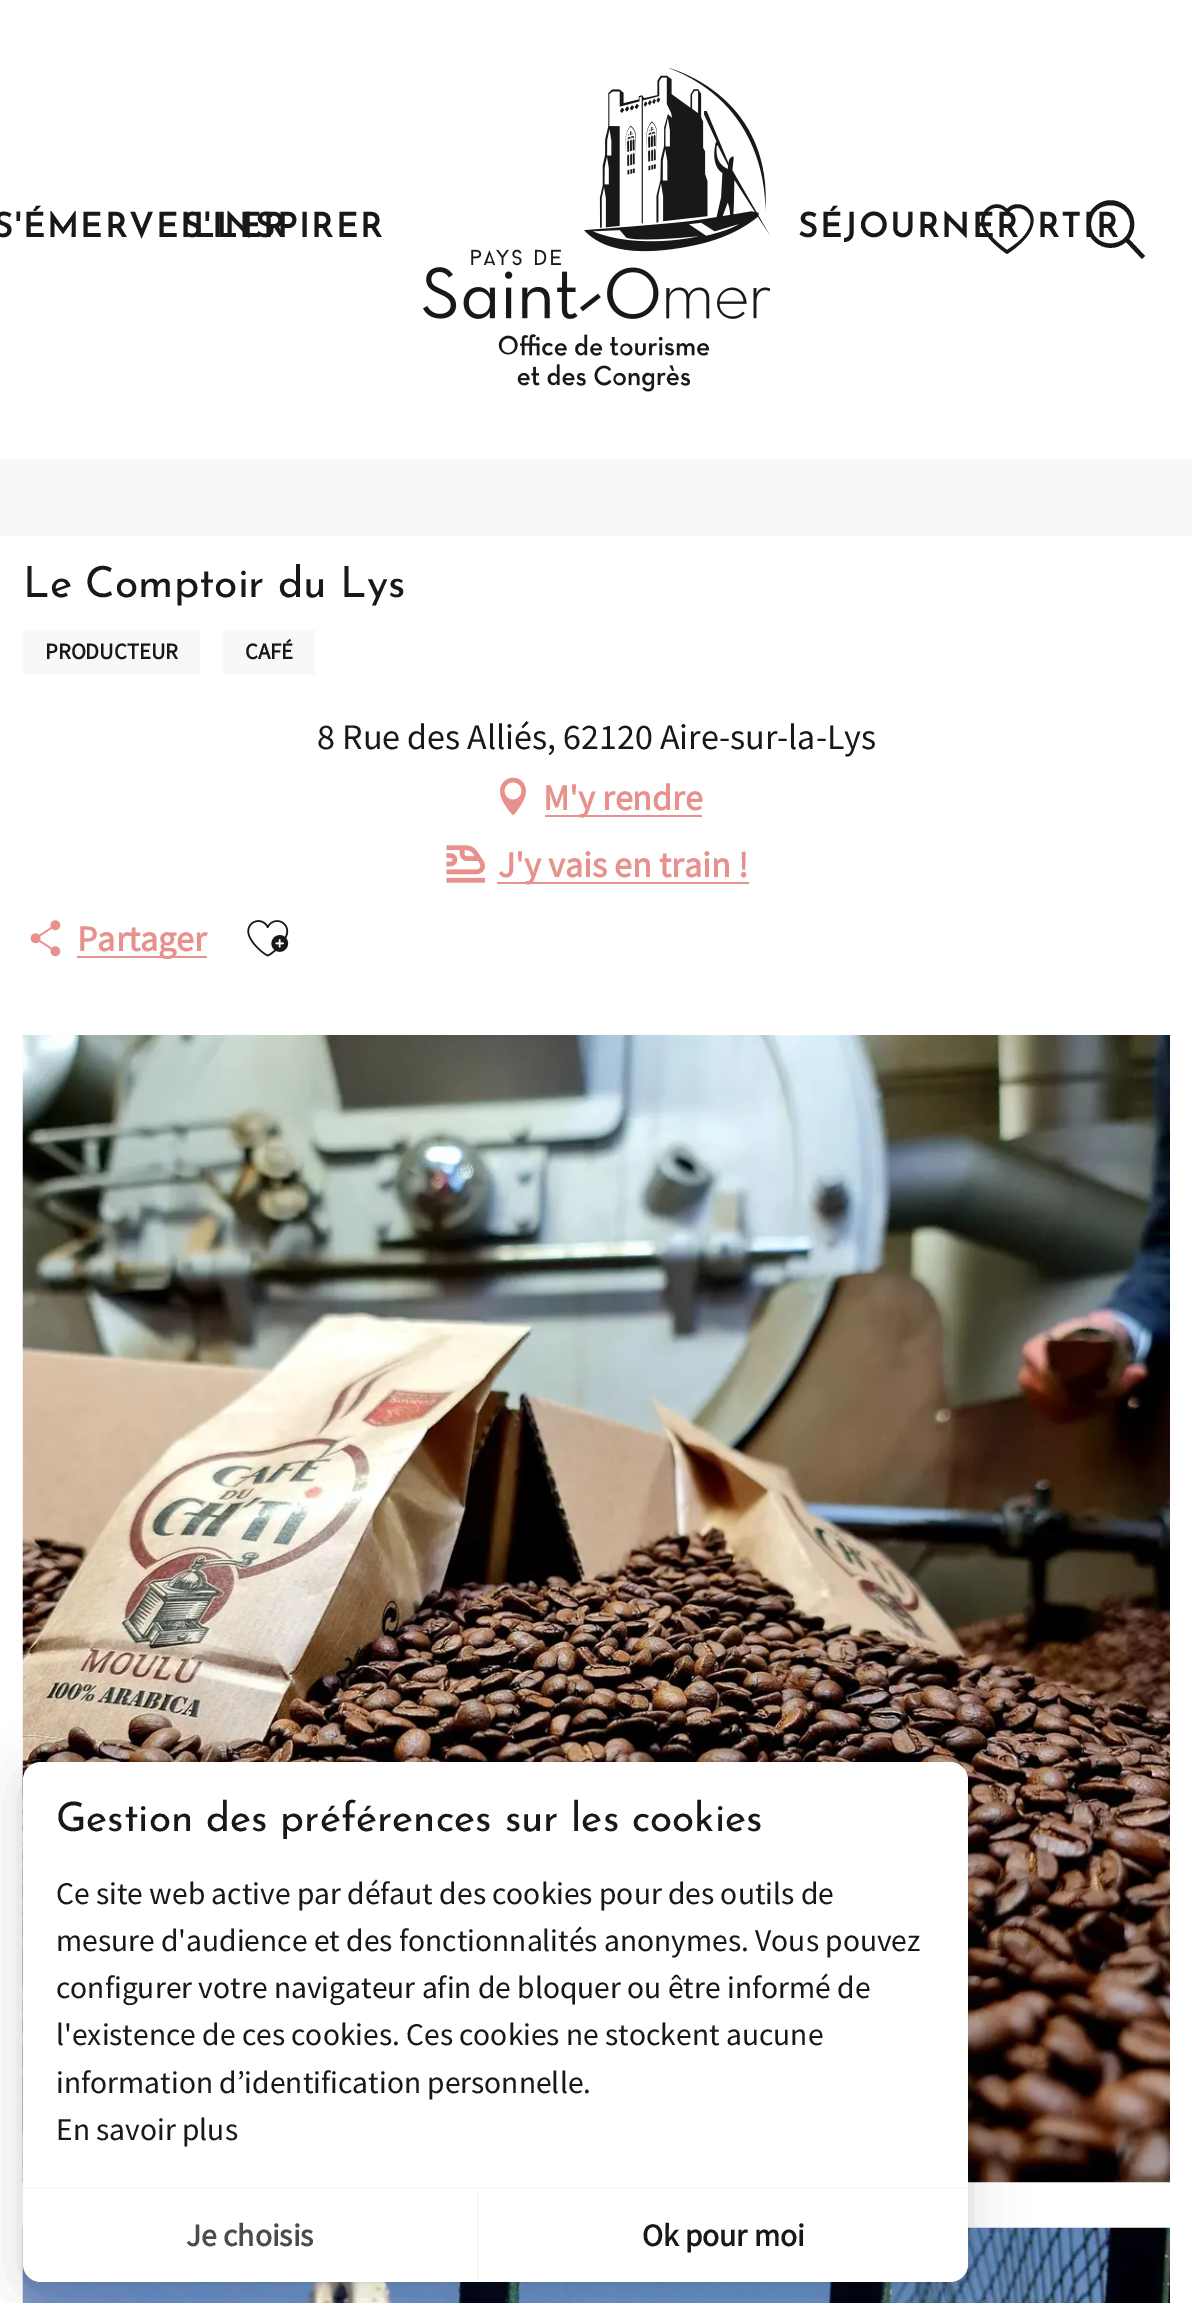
%!PS
<< /PageSize [1192 2303] /PageUsesTransparency true >> setpagedevice
/mt/moveto load def
/li/lineto load def
/ct/curveto load def
/cp/closepath load def
/fl/fill load def
/co { dup -16 bitshift 255 div exch dup -8 bitshift 255 and 255 div exch 255 and 255 div setrgbcolor } def
/fn { [ exch dup neg 0 0 3 -1 roll 0 0 ] selectfont } def
/tx { co fn moveto show } def
/bx { co rectfill } def
/al { dup .setfillconstantalpha .setstrokeconstantalpha } def
/rr { 5 dict begin { /r /h /w /y /x } { exch def } forall
  x r add y moveto x w add y 2 copy h add r arct x w add y h add x 1 index r arct
  x y h add x y r arct x y 2 copy exch w add exch r arct closepath end } def
/sh { 12 dict begin { /a /b /q /h /w /y /x } { exch def } forall gsave /was 0 def
  9 -2 -9 { dup b mul 4 div /e exch def 1 sub .425 mul 2.718 exch exp 1 add a .99 .min exch div /now exch def
    1 1 now sub 1 was sub div sub al /was now def
    w h .min e 2 mul add 0 gt { x e sub y e sub w e 2 mul add h e 2 mul add
      q e add b .6 mul add w h .min 2 div e add .min 0 .max rr fill } if } for grestore end } def
/im { 5 dict begin { /h /w /y /x /name } { exch def } forall
  gsave x y translate w h scale
  w h 8 [w 0 0 h 0 0] name (r) file false 3 colorimage grestore end } def
0 .pushpdf14devicefilter
0 2303 translate 1 -1 scale
4 setmiterlimit
0 0 1192 2303 16#FFFFFF bx
16#1A171B co
1007 214 mt 1006 212 1004 210 1002 209 ct 990 204 982 216 985 226 ct 989 236 999 244 1007 250 ct 1016 244 1027 236 1030 225 ct 1033 215 1024 205 1013 209 ct 1011 210 1009 212 1007 214 ct cp 1007 254 mt 997 247 986 238 982 226 ct 977 210 996 197 1007 209 ct 1021 193 1059 220 1007 254 ct cp fl
1145 256 mt 1129 239 li 1138 228 1135 211 1123 204 ct 1117 200 1109 199 1102 202 ct 1097 204 1092 208 1090 213 ct 1077 236 1106 259 1126 242 ct 1142 259 li cp 1091 224 mt 1091 199 1130 199 1130 224 ct 1130 250 1091 250 1091 224 ct cp fl
(media/1.raw) 423 68 347 324 im
0 459 1192 77 16#F8F8F8 bx
23 630 177 45 16#F8F8F8 bx
223 630 92 45 16#F8F8F8 bx
(media/2.raw) 500 777 26 39 im
545 815 157 2 16#E7918D bx
(media/3.raw) 446 845 40 38 im
497 882 252 2 16#E7918D bx
(media/4.raw) 30 920 31 37 im
77 956 130 2 16#E7918D bx
(media/5.raw) 247 920 42 37 im
(media/6.raw) 22 1035 1148 1148 im
(media/7.raw) 22 2227 1148 76 im
16#1A171B co
23 1766 945 520 18 7 .05 sh
23 1771 945 520 18 27 .15 sh
16#FFFFFF co
23 1762 945 520 18 rr fl
23 2187 945 2 16#F8F8F8 bx
477 2189 2 93 16#F8F8F8 bx
/JosefinSans-Bold 33.75 fn
16#1A171B co
-7 237 mt 2.25 0 (S'ÉMERVEILLER) ashow
798 237 mt 2.25 0 (SÉJOURNER) ashow
182 237 mt 2.25 0 (S'INSPIRER) ashow
1037 237 mt 2.25 0 (RTIR) ashow
(Le Comptoir du Lys) 23 597 /JosefinSans-Thin 42.75 16#1A171B tx
(PRODUCTEUR) 45 659 /SourceSansPro-Bold 22.5 16#1A171B tx
(CAFÉ) 245 659 /SourceSansPro-Bold 22.5 16#1A171B tx
(8 Rue des Alliés, 62120 Aire-sur-la-Lys) 317 749 /SourceSansPro-Regular 36 16#1A171B tx
(M'y rendre) 543 810 /SourceSansPro-Bold 36 16#E7918D tx
(J'y vais en train !) 498 877 /SourceSansPro-Bold 36 16#E7918D tx
(Partager) 77 951 /SourceSansPro-Bold 36 16#E7918D tx
(Gestion des préférences sur les cookies) 56 1831 /JosefinSans-Thin 40.5 16#1A171B tx
(Ce site web active par défaut des cookies pour des outils de) 56 1904 /SourceSansPro-Regular 31.5 16#1A171B tx
(mesure d'audience et des fonctionnalités anonymes. Vous pouvez) 56 1951 /SourceSansPro-Regular 31.5 16#1A171B tx
(configurer votre navigateur afin de bloquer ou être informé de) 56 1998 /SourceSansPro-Regular 31.5 16#1A171B tx
(l'existence de ces cookies. Ces cookies ne stockent aucune) 56 2045 /SourceSansPro-Regular 31.5 16#1A171B tx
(information d’identification personnelle.) 56 2093 /SourceSansPro-Regular 31.5 16#1A171B tx
(En savoir plus) 56 2140 /SourceSansPro-Regular 31.5 16#1A171B tx
(Je choisis) 186 2246 /SourceSansPro-Bold 31.5 16#4B4B4B tx
(Ok pour moi) 642 2246 /SourceSansPro-Bold 31.5 16#1A171B tx
.poppdf14devicefilter showpage
